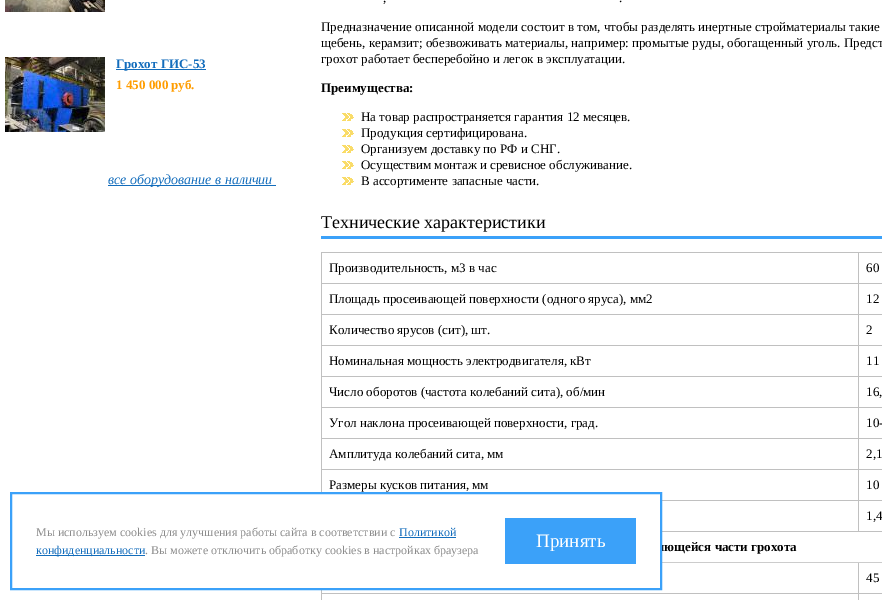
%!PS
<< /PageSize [882 600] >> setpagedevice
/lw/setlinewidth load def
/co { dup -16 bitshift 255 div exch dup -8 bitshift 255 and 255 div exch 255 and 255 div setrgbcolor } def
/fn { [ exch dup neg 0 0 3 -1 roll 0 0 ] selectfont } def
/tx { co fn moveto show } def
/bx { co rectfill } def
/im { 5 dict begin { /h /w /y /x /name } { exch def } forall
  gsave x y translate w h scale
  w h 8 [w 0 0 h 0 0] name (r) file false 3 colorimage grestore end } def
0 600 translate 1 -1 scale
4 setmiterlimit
0 0 882 600 16#FFFFFF bx
(media/1.raw) 5 0 100 12 im
(media/2.raw) 5 57 100 75 im
116 69 90 1 16#136DBC bx
108 185 168 1 16#136DBC bx
(media/3.raw) 342 113 12 8 im
(media/3.raw) 342 129 12 8 im
(media/3.raw) 342 145 12 8 im
(media/3.raw) 342 161 12 8 im
(media/3.raw) 342 177 12 8 im
321 236 561 3 16#3BA1F9 bx
321 252 561 1 16#C0C0C0 bx
321 252 1 348 16#C0C0C0 bx
858 283 24 1 16#C0C0C0 bx
858 314 24 1 16#C0C0C0 bx
858 345 24 1 16#C0C0C0 bx
858 376 24 1 16#C0C0C0 bx
858 407 24 1 16#C0C0C0 bx
858 438 24 1 16#C0C0C0 bx
858 469 24 1 16#C0C0C0 bx
858 500 24 1 16#C0C0C0 bx
858 531 24 1 16#C0C0C0 bx
858 500 1 32 16#C0C0C0 bx
662 500 197 1 16#C0C0C0 bx
858 469 1 32 16#C0C0C0 bx
321 469 538 1 16#C0C0C0 bx
858 438 1 32 16#C0C0C0 bx
321 438 538 1 16#C0C0C0 bx
858 407 1 32 16#C0C0C0 bx
321 407 538 1 16#C0C0C0 bx
858 376 1 32 16#C0C0C0 bx
321 376 538 1 16#C0C0C0 bx
858 345 1 32 16#C0C0C0 bx
321 345 538 1 16#C0C0C0 bx
858 314 1 32 16#C0C0C0 bx
321 314 538 1 16#C0C0C0 bx
858 283 1 32 16#C0C0C0 bx
321 283 538 1 16#C0C0C0 bx
858 252 1 32 16#C0C0C0 bx
662 531 197 1 16#C0C0C0 bx
858 593 24 1 16#C0C0C0 bx
858 593 1 7 16#C0C0C0 bx
321 593 538 1 16#C0C0C0 bx
858 562 1 32 16#C0C0C0 bx
662 562 220 1 16#CCCCCC bx
(Грохот ГИС-53) 116 68 /LiberationSerif-Bold 13 16#136DBC tx
(1 450 000 руб.) 116 89 /LiberationSerif-Bold 13 16#FF9D00 tx
(все оборудование в наличии) 108 184 /LiberationSerif-Italic 14 16#136DBC tx
(,) 383 2 /LiberationSerif-Regular 13 16#000000 tx
(.) 619 2 /LiberationSerif-Regular 13 16#000000 tx
(Предназначение описанной модели состоит в том, чтобы разделять инертные стройматериалы такие) 321 31 /LiberationSerif-Regular 13 16#000000 tx
(щебень, керамзит; обезвоживать материалы, например: промытые руды, обогащенный уголь. Предст) 321 47 /LiberationSerif-Regular 13 16#000000 tx
(грохот работает бесперебойно и легок в эксплуатации.) 321 63 /LiberationSerif-Regular 13 16#000000 tx
(Преимущества:) 321 92 /LiberationSerif-Bold 13 16#000000 tx
(На товар распространяется гарантия 12 месяцев.) 361 121 /LiberationSerif-Regular 13 16#000000 tx
(Продукция сертифицирована.) 361 137 /LiberationSerif-Regular 13 16#000000 tx
(Организуем доставку по РФ и СНГ.) 361 153 /LiberationSerif-Regular 13 16#000000 tx
(Осуществим монтаж и сревисное обслуживание.) 361 169 /LiberationSerif-Regular 13 16#000000 tx
(В ассортименте запасные части.) 361 185 /LiberationSerif-Regular 13 16#000000 tx
(Технические характеристики) 321 228 /LiberationSerif-Regular 18 16#000000 tx
(Производительность, м3 в час) 329 272 /LiberationSerif-Regular 13 16#000000 tx
(60) 866 272 /LiberationSerif-Regular 13 16#000000 tx
(Площадь просеивающей поверхности \(одного яруса\), мм2) 329 303 /LiberationSerif-Regular 13 16#000000 tx
(12) 866 303 /LiberationSerif-Regular 13 16#000000 tx
(Количество ярусов \(сит\), шт.) 329 334 /LiberationSerif-Regular 13 16#000000 tx
(2) 866 334 /LiberationSerif-Regular 13 16#000000 tx
(Номинальная мощность электродвигателя, кВт) 329 365 /LiberationSerif-Regular 13 16#000000 tx
(11) 866 365 /LiberationSerif-Regular 13 16#000000 tx
(Число оборотов \(частота колебаний сита\), об/мин) 329 396 /LiberationSerif-Regular 13 16#000000 tx
(16,) 866 396 /LiberationSerif-Regular 13 16#000000 tx
(Угол наклона просеивающей поверхности, град.) 329 427 /LiberationSerif-Regular 13 16#000000 tx
(10-) 866 427 /LiberationSerif-Regular 13 16#000000 tx
(Амплитуда колебаний сита, мм) 329 458 /LiberationSerif-Regular 13 16#000000 tx
(2,1) 866 458 /LiberationSerif-Regular 13 16#000000 tx
(Размеры кусков питания, мм) 329 489 /LiberationSerif-Regular 13 16#000000 tx
(10) 866 489 /LiberationSerif-Regular 13 16#000000 tx
(1,4) 866 520 /LiberationSerif-Regular 13 16#000000 tx
(лющейся части грохота) 657 551 /LiberationSerif-Bold 13 16#000000 tx
(45) 866 582 /LiberationSerif-Regular 13 16#000000 tx
321 494 339 94 16#FFFFFF bx
16#3BA1F9 co
2 lw
11 493 650 96 rectstroke
(Мы используем cookies для улучшения работы сайта в соответствии с) 36 536 /LiberationSerif-Regular 12 16#8C8C8C tx
(Политикой) 399 536 /LiberationSerif-Regular 12 16#136DBC tx
399 537 57 1 16#136DBC bx
36 555 109 1 16#136DBC bx
(конфиденциальности) 36 554 /LiberationSerif-Regular 12 16#136DBC tx
(. Вы можете отключить обработку cookies в настройках браузера) 145 554 /LiberationSerif-Regular 12 16#8C8C8C tx
505 518 131 46 16#3BA1F9 bx
(Принять) 536 547 /LiberationSerif-Regular 19 16#FFFFFF tx
showpage
